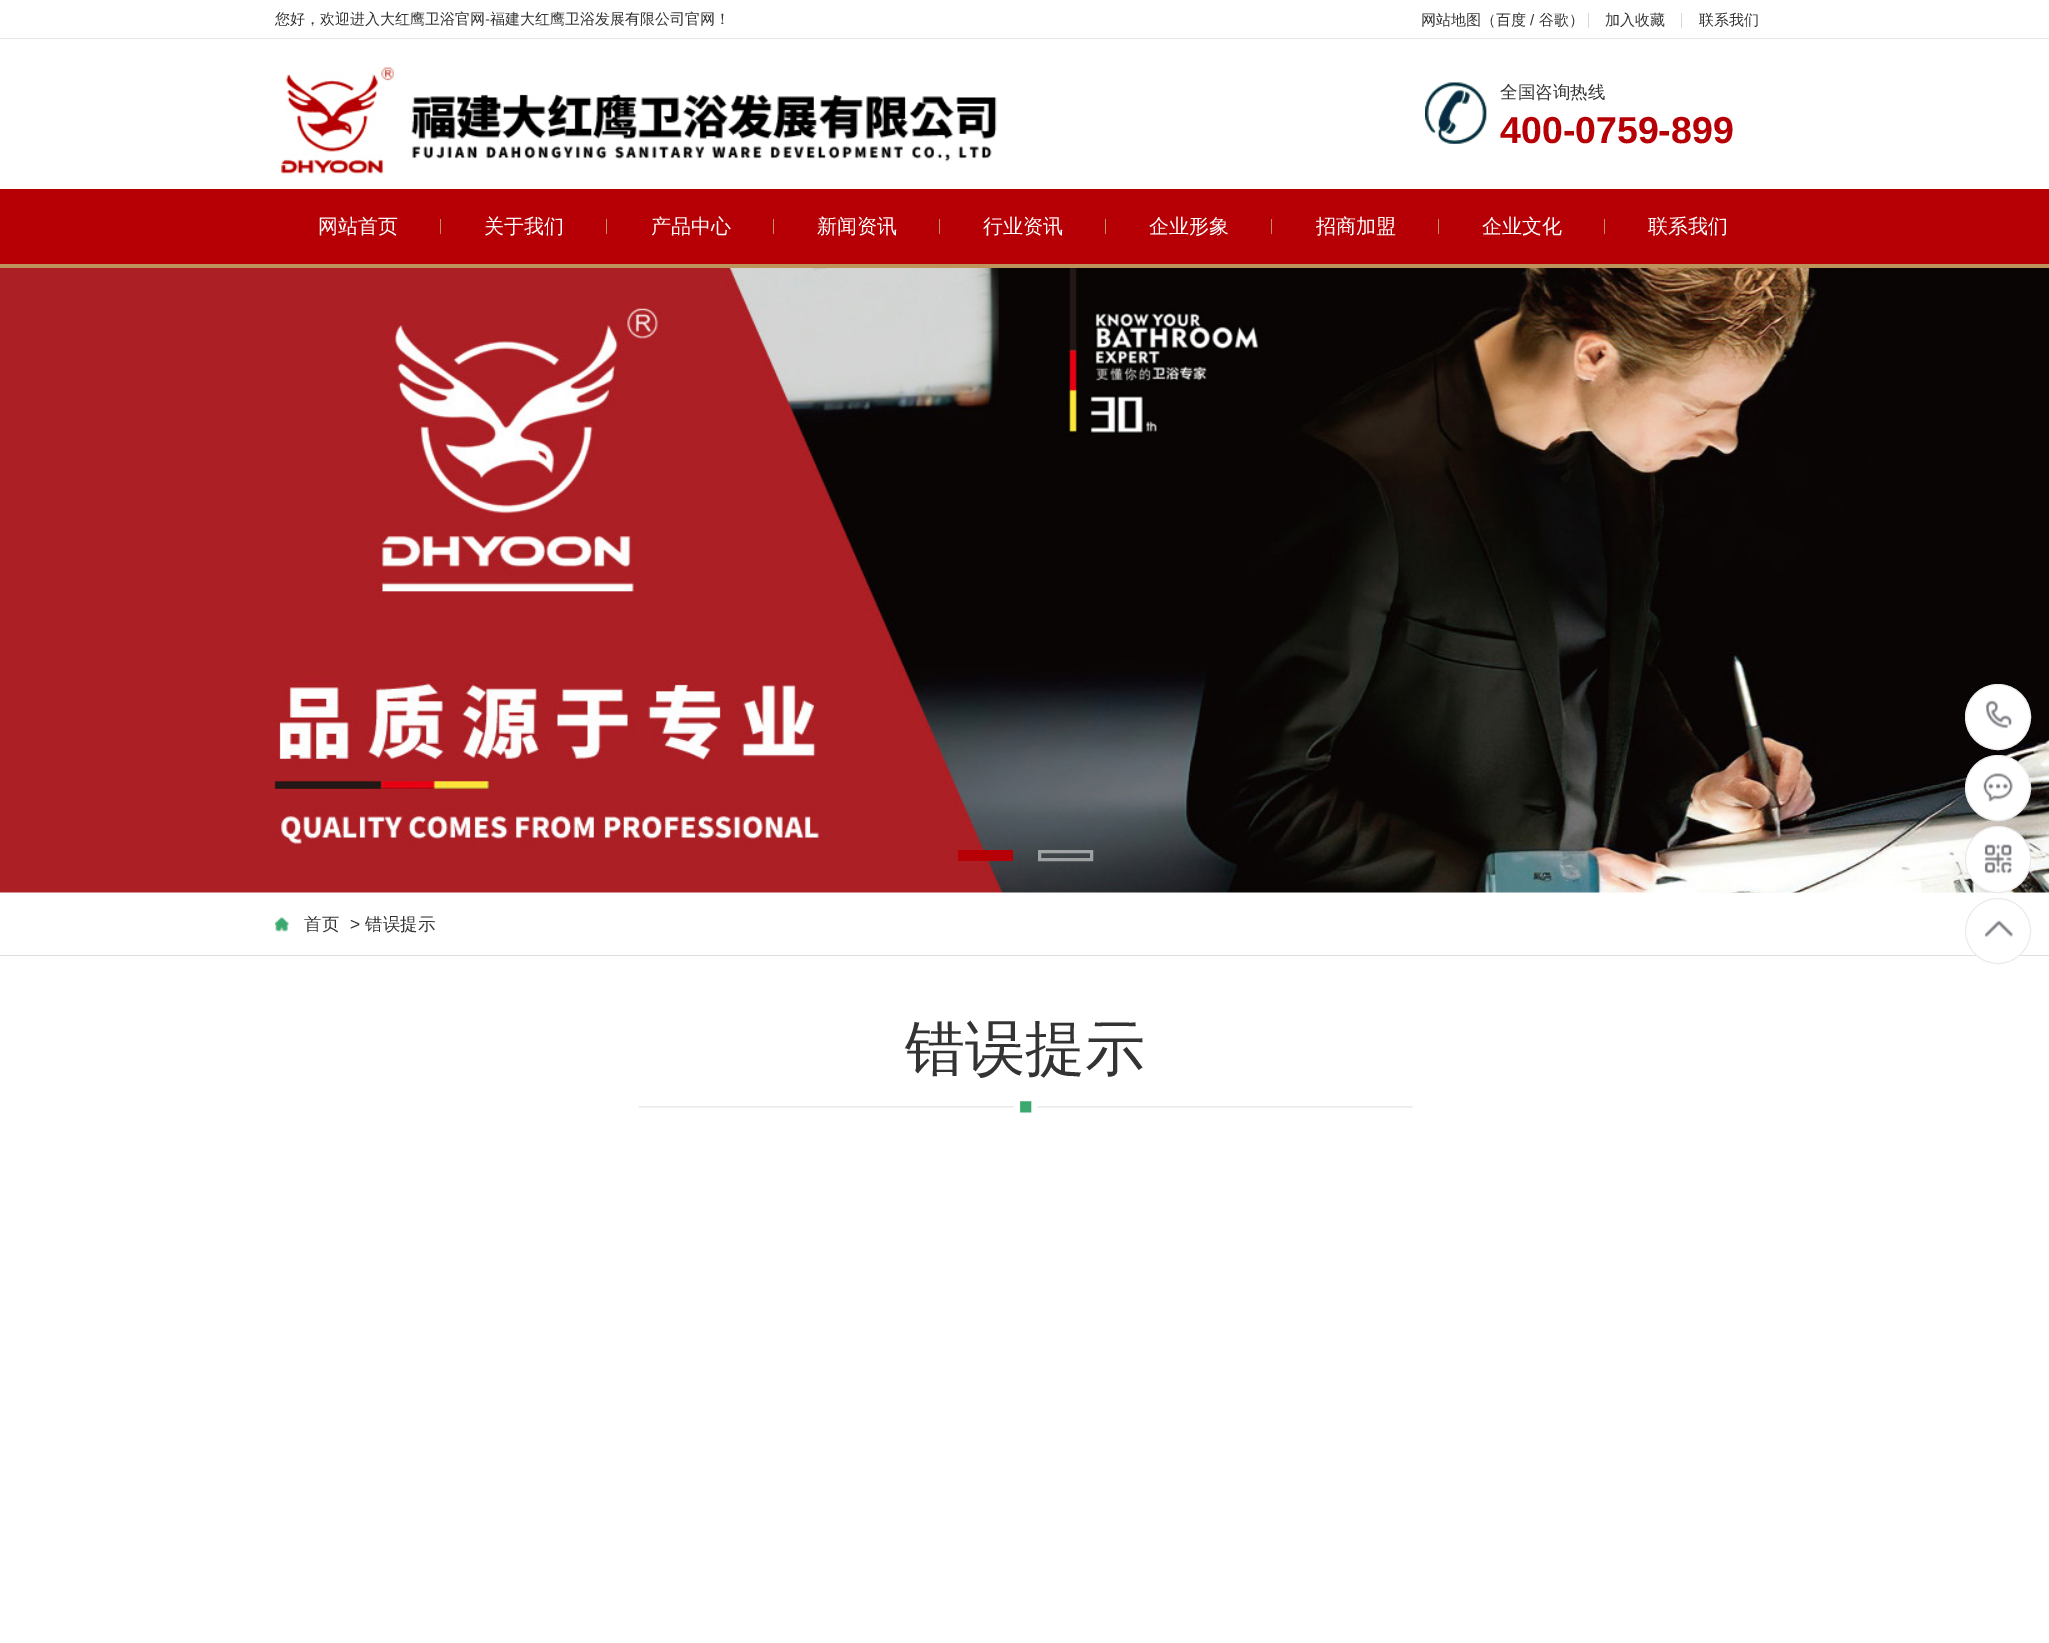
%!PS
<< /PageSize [2049 1643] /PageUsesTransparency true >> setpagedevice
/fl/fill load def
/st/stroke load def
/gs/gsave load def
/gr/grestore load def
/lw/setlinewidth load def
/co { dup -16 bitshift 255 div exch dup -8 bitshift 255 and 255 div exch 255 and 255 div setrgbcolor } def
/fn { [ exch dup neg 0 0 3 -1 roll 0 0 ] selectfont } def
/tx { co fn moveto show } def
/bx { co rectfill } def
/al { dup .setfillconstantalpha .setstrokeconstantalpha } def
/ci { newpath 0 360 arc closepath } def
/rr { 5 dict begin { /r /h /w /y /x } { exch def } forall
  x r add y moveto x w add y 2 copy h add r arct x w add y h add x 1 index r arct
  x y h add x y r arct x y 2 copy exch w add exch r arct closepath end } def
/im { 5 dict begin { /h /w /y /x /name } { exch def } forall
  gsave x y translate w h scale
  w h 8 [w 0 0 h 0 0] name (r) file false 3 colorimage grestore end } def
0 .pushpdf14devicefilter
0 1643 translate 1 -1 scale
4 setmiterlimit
0 0 2049 1643 16#FFFFFF bx
0 38 2049 1 16#E5E5E5 bx
1588 13 1 15 16#D8D8D8 bx
1681 13 1 15 16#D8D8D8 bx
(media/1.raw) 281 67 716 107 im
(media/2.raw) 1425 82 62 62 im
0 189 2049 75 16#B70005 bx
0 264 2049 4 16#BD945C bx
440 219 1 15 16#BD945C bx
606 219 1 15 16#BD945C bx
773 219 1 15 16#BD945C bx
939 219 1 15 16#BD945C bx
1105 219 1 15 16#BD945C bx
1271 219 1 15 16#BD945C bx
1438 219 1 15 16#BD945C bx
1604 219 1 15 16#BD945C bx
(media/3.raw) 0 268 2049 625 im
958 850 55 11 16#B70005 bx
0.5 al
16#FFFFFF co
3 lw
1039.5 851.5 52 8 rectstroke
1 al
1998 717 32.5 ci gs fl gr
16#EBEBEB co
1 lw
st
(media/4.raw) 1986 700 26 29 im
16#FFFFFF co
1998 788 32.5 ci gs fl gr
16#EBEBEB co
st
(media/5.raw) 1983 773 30 29 im
16#FFFFFF co
1965.5 826.5 65 66 32.5 rr gs fl gr
16#EBEBEB co
st
(media/6.raw) 1984 844 28 30 im
0 955 2049 1 16#DEDEDE bx
16#FFFFFF co
1998 931 32.5 ci gs fl gr
16#EBEBEB co
st
(media/7.raw) 1984 920 29 17 im
(media/8.raw) 275 917 14 15 im
(media/9.raw) 638 1101 775 12 im
(您好，欢迎进入大红鹰卫浴官网) 275 24 /WenQuanYiZenHei-Medium 15 16#333333 tx
(-) 485 24 /LiberationSans-Regular 15 16#333333 tx
(福建大红鹰卫浴发展有限公司官网！) 490 24 /WenQuanYiZenHei-Medium 15 16#333333 tx
(网站地图（百度) 1421 25 /WenQuanYiZenHei-Medium 15 16#333333 tx
(/) 1530 25 /LiberationSans-Regular 15 16#333333 tx
(谷歌）) 1539 25 /WenQuanYiZenHei-Medium 15 16#333333 tx
(加入收藏) 1605 25 /WenQuanYiZenHei-Medium 15 16#333333 tx
(联系我们) 1699 25 /WenQuanYiZenHei-Medium 15 16#333333 tx
(全国咨询热线) 1500 98 /WenQuanYiZenHei-Medium 17.5 16#333333 tx
(400-0759-899) 1500 143 /LiberationSans-Bold 37.5 16#B70005 tx
(网站首页) 318 233 /WenQuanYiZenHei-Medium 20 16#FFFFFF tx
(关于我们) 484 233 /WenQuanYiZenHei-Medium 20 16#FFFFFF tx
(产品中心) 651 233 /WenQuanYiZenHei-Medium 20 16#FFFFFF tx
(新闻资讯) 817 233 /WenQuanYiZenHei-Medium 20 16#FFFFFF tx
(行业资讯) 983 233 /WenQuanYiZenHei-Medium 20 16#FFFFFF tx
(企业形象) 1149 233 /WenQuanYiZenHei-Medium 20 16#FFFFFF tx
(招商加盟) 1316 233 /WenQuanYiZenHei-Medium 20 16#FFFFFF tx
(企业文化) 1482 233 /WenQuanYiZenHei-Medium 20 16#FFFFFF tx
(联系我们) 1648 233 /WenQuanYiZenHei-Medium 20 16#FFFFFF tx
(首页) 304 930 /WenQuanYiZenHei-Medium 17.5 16#333333 tx
(>) 350 930 /LiberationSans-Regular 17.5 16#333333 tx
(错误提示) 365 930 /WenQuanYiZenHei-Medium 17.5 16#333333 tx
(错误提示) 905 1069 /WenQuanYiZenHei-Medium 60 16#333333 tx
.poppdf14devicefilter showpage
